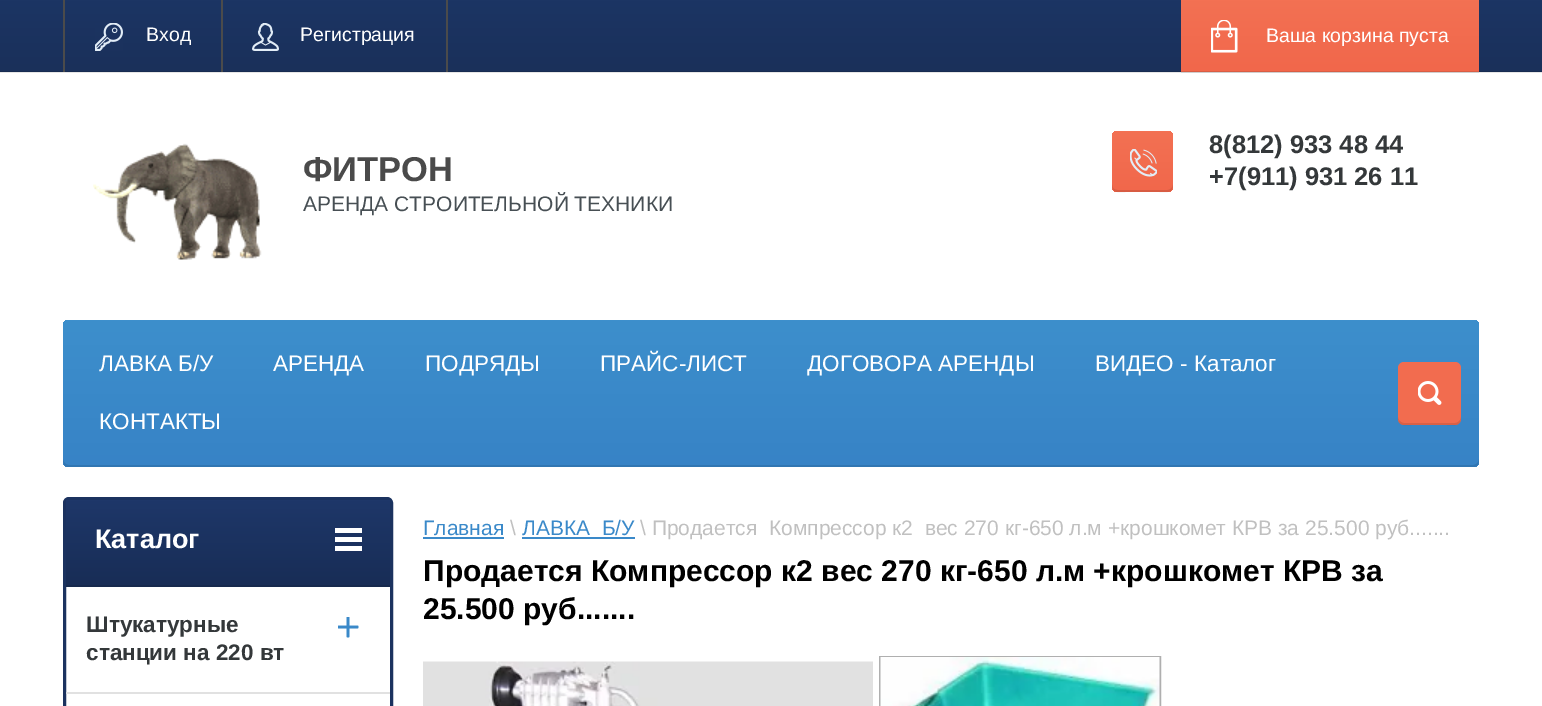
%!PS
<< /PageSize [1542 706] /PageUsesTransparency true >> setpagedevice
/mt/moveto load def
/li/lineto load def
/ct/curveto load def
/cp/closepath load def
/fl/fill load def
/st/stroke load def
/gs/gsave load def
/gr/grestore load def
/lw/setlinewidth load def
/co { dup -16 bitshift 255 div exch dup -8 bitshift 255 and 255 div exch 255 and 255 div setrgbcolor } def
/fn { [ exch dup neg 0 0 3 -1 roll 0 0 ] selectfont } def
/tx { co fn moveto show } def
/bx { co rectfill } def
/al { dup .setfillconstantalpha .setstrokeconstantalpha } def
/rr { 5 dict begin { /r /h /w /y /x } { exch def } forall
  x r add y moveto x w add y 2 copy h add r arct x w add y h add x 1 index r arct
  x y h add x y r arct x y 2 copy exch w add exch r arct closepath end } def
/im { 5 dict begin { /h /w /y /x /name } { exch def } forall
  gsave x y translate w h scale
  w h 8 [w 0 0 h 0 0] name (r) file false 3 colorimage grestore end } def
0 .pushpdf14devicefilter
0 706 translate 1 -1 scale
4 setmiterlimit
0 0 1542 706 16#FFFFFF bx
0 72 1542 1 16#E6E6E6 bx
1181 72 298 1 16#CFCFCF bx
gs 0 0 mt 1542 0 li 1542 71 li 0 71 li cp clip newpath
<< /ShadingType 2 /ColorSpace /DeviceRGB /Coords [771 72 771 0] /Extend [true true] /Function << /FunctionType 2 /Domain [0 1] /C0 [.102 .188 .353] /C1 [.11 .208 .392] /N 1 >> >> shfill gr
gs 0 71 mt 1542 71 li 1542 72 li 0 72 li cp clip newpath
<< /ShadingType 2 /ColorSpace /DeviceRGB /Coords [771 72 771 0] /Extend [true true] /Function << /FunctionType 2 /Domain [0 1] /C0 [.09 .169 .318] /C1 [.098 .188 .353] /N 1 >> >> shfill gr
63 0 2 72 16#4B4B4B bx
(media/1.raw) 95 23 28 28 im
221 0 2 72 16#4B4B4B bx
(media/2.raw) 252 23 27 28 im
446 0 2 72 16#4B4B4B bx
gs 1181 0 mt 1479 0 li 1479 71 li 1181 71 li cp clip newpath
<< /ShadingType 2 /ColorSpace /DeviceRGB /Coords [1330 72 1330 0] /Extend [true true] /Function << /FunctionType 2 /Domain [0 1] /C0 [.945 .404 .294] /C1 [.953 .443 .325] /N 1 >> >> shfill gr
gs 1181 71 mt 1479 71 li 1479 72 li 1181 72 li cp clip newpath
<< /ShadingType 2 /ColorSpace /DeviceRGB /Coords [1330 72 1330 0] /Extend [true true] /Function << /FunctionType 2 /Domain [0 1] /C0 [.851 .365 .267] /C1 [.859 .4 .294] /N 1 >> >> shfill gr
(media/3.raw) 1211 20 27 33 im
(media/4.raw) 93 143 169 117 im
gs 1112 131 61 61 6 rr clip newpath
<< /ShadingType 2 /ColorSpace /DeviceRGB /Coords [1142 192 1142 131] /Extend [true true] /Function << /FunctionType 2 /Domain [0 1] /C0 [.945 .404 .294] /C1 [.953 .443 .325] /N 1 >> >> shfill gr
0.1 al
16#000000 co
1112 184 mt 1112 194 1118 192 1126 192 ct 1159 192 li 1167 192 1173 194 1173 184 ct 1173 188 1170 190 1167 190 ct 1118 190 li 1114 190 1112 188 1112 184 ct cp fl
1 al
(media/5.raw) 1130 149 27 28 im
gs 63 320 1416 147 6 rr clip newpath
<< /ShadingType 2 /ColorSpace /DeviceRGB /Coords [771 467 771 320] /Extend [true true] /Function << /FunctionType 2 /Domain [0 1] /C0 [.216 .514 .776] /C1 [.239 .561 .8] /N 1 >> >> shfill gr
0.1 al
63 459 mt 63 463 64 467 69 467 ct 1473 467 li 1478 467 1479 463 1479 459 ct 1479 462 1476 465 1473 465 ct 69 465 li 66 465 63 462 63 459 ct cp fl
1 al
16#F26C4F co
1398 362 63 63 6 rr fl
0.1 al
16#000000 co
1398 417 mt 1398 427 1404 425 1412 425 ct 1446 425 li 1455 425 1461 427 1461 417 ct 1461 420 1458 423 1455 423 ct 1404 423 li 1401 423 1398 420 1398 417 ct cp fl
1 al
(media/6.raw) 1418 381 24 24 im
16#1B325F co
3 lw
64.5 498.5 327 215 4.5 rr st
gs 66 500 mt 390 500 li 390 585 li 66 585 li cp clip newpath
<< /ShadingType 2 /ColorSpace /DeviceRGB /Coords [228 587 228 500] /Extend [true true] /Function << /FunctionType 2 /Domain [0 1] /C0 [.094 .176 .337] /C1 [.118 .216 .412] /N 1 >> >> shfill gr
66 585 324 2 16#16294D bx
335 528 27 5 16#FFFFFF bx
335 537 27 5 16#FFFFFF bx
335 546 27 5 16#FFFFFF bx
(media/7.raw) 338 617 21 21 im
66 692 324 2 16#E1E1E1 bx
423 537 81 2 16#3A89C9 bx
522 537 113 2 16#3A89C9 bx
16#AFAFAF co
2 lw
880 657 280 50 rectstroke
(media/8.raw) 423 661 450 45 im
(media/9.raw) 880 657 280 49 im
(Вход) 146 41 /LiberationSans-Regular 19.5 16#FFFFFF tx
(Регистрация) 300 41 /LiberationSans-Regular 19.5 16#FFFFFF tx
(Ваша корзина пуста) 1266 42 /LiberationSans-Regular 19.5 16#FFFFFF tx
(ФИТРОН) 303 181 /LiberationSans-Bold 34.5 16#4A4A4A tx
(АРЕНДА СТРОИТЕЛЬНОЙ ТЕХНИКИ) 303 211 /LiberationSans-Regular 21 16#474F54 tx
(8\(812\) 933 48 44) 1209 153 /LiberationSans-Bold 25.5 16#34383A tx
(+7\(911\) 931 26 11) 1209 185 /LiberationSans-Bold 25.5 16#34383A tx
(ЛАВКА Б/У) 99 371 /LiberationSans-Regular 22.5 16#FFFFFF tx
(АРЕНДА) 273 371 /LiberationSans-Regular 22.5 16#FFFFFF tx
(ПОДРЯДЫ) 425 371 /LiberationSans-Regular 22.5 16#FFFFFF tx
(ПРАЙС-ЛИСТ) 600 371 /LiberationSans-Regular 22.5 16#FFFFFF tx
(ДОГОВОРА АРЕНДЫ) 807 371 /LiberationSans-Regular 22.5 16#FFFFFF tx
(ВИДЕО - Каталог) 1095 371 /LiberationSans-Regular 22.5 16#FFFFFF tx
(КОНТАКТЫ) 99 429 /LiberationSans-Regular 22.5 16#FFFFFF tx
(Каталог) 95 548 /LiberationSans-Bold 27 16#FFFFFF tx
(Штукатурные) 86 632 /LiberationSans-Bold 22.5 16#34383A tx
(станции на 220 вт) 86 660 /LiberationSans-Bold 22.5 16#34383A tx
(Главная) 423 535 /LiberationSans-Regular 21 16#3A89C9 tx
(\\) 510 535 /LiberationSans-Regular 21 16#C0C0C0 tx
(ЛАВКА  Б/У) 522 535 /LiberationSans-Regular 21 16#3A89C9 tx
(\\ Продается  Компрессор к2  вес 270 кг-650 л.м +крошкомет КРВ за 25.500 руб.......) 640 535 /LiberationSans-Regular 21 16#C0C0C0 tx
(Продается Компрессор к2 вес 270 кг-650 л.м +крошкомет КРВ за) 423 581 /LiberationSans-Bold 30 16#000000 tx
(25.500 руб.......) 423 619 /LiberationSans-Bold 30 16#000000 tx
.poppdf14devicefilter showpage
